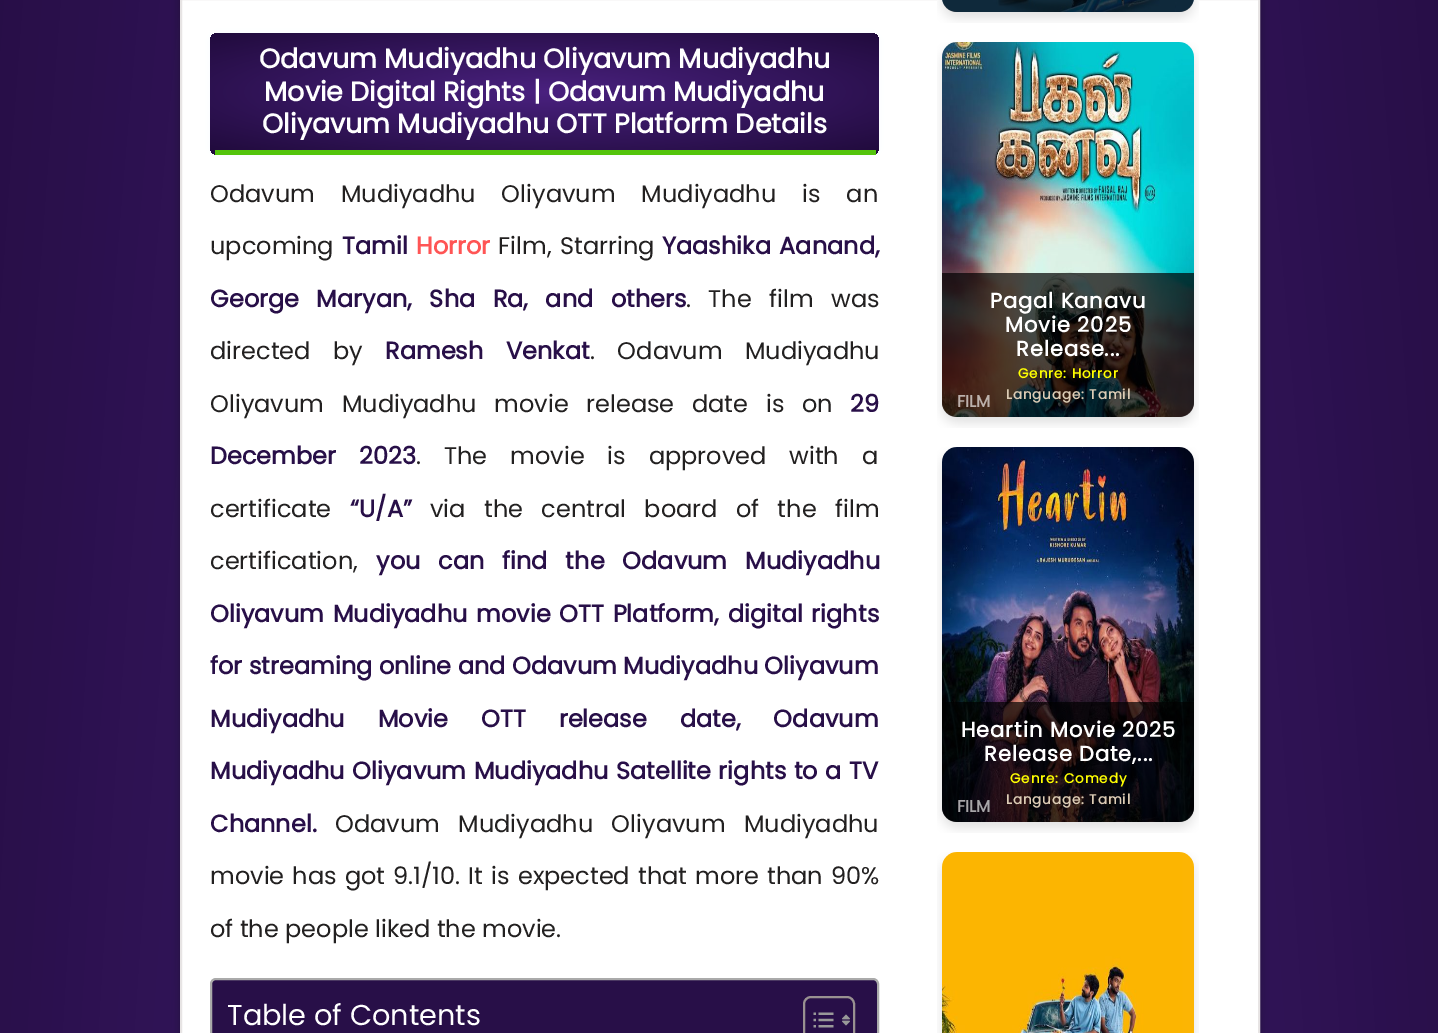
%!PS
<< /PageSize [1438 1033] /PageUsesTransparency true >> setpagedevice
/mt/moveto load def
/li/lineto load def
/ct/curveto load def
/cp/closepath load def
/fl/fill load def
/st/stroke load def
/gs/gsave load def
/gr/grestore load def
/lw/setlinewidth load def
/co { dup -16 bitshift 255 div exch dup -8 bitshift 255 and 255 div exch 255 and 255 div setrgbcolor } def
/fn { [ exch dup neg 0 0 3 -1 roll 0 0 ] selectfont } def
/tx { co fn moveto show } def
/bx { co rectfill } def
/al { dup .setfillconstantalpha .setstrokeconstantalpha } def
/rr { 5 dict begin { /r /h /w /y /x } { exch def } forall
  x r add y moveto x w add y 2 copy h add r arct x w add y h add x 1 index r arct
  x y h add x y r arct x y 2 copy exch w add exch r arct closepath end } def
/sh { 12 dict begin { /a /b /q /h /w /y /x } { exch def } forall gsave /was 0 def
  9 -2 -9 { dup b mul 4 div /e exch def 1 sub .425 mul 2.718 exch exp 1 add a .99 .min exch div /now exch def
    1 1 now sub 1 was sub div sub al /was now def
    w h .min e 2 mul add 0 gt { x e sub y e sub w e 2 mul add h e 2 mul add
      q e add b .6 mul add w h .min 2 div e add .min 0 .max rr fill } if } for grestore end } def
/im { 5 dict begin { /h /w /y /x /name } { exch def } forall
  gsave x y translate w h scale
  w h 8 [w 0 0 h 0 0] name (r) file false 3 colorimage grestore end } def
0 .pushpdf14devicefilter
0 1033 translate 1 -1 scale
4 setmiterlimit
0 0 1438 1033 16#FFFFFF bx
gs 0 0 mt 1438 0 li 1438 1033 li 0 1033 li cp clip newpath 719 3735 translate 1017 8523 scale
<< /ShadingType 3 /ColorSpace /DeviceRGB /Coords [0 0 0 0 0 1] /Extend [true true] /Function << /FunctionType 2 /Domain [0 1] /C0 [.29 .129 .498] /C1 [.129 .043 .239] /N 1 >> >> shfill gr
16#000000 co
180 -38 1080 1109 15 7.5 .12 sh
180 -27 1080 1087 15 4 .16 sh
16#FFFFFF co
181 -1 mt 1259 -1 li 1259 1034 li 181 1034 li cp gs fl gr
16#E7E4E4 co
2 lw
st
16#E9F6FF co
210 33 669 122 8 4 .46 sh
gs
210 33 669 122 8 rr clip newpath
gs 218 33 mt 871 33 li 875.5 33 879 36.5 879 41 ct 879 150 li 210 150 li 210 41 li 210 36.5 213.5 33 218 33 ct cp clip newpath 545 92 translate 473 83 scale
<< /ShadingType 3 /ColorSpace /DeviceRGB /Coords [0 0 0 0 0 1] /Extend [true true] /Function << /FunctionType 2 /Domain [0 1] /C0 [.29 .129 .498] /C1 [.129 .043 .239] /N 1 >> >> shfill gr
gs 210 150 mt 879 150 li 879 155 li 210 155 li cp clip newpath 545 209 translate 473 83 scale
<< /ShadingType 3 /ColorSpace /DeviceRGB /Coords [0 0 0 0 0 1] /Extend [true true] /Function << /FunctionType 2 /Domain [0 1] /C0 [.29 .129 .498] /C1 [.129 .043 .239] /N 1 >> >> shfill gr
gr
215 150 661 5 16#53C40C bx
16#280F48 co
211 979 667 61 5 rr gs fl gr
16#AAAAAA co
st
16#999191 co
804 997 50 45 7 rr st
(media/1.raw) 813 1012 21 16 im
(media/2.raw) 842 1014 8 12 im
(media/3.raw) 937 0 262 23 im
0.7 al
16#000000 co
942 -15 mt 1194 -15 li 1194 -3 li 1194 5.5 1187.5 12 1179 12 ct 957 12 li 948.5 12 942 5.5 942 -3 ct cp fl
1 al
(media/4.raw) 937 42 262 386 im
0.7 al
942 273 mt 1194 273 li 1194 402 li 1194 410.5 1187.5 417 1179 417 ct 957 417 li 948.5 417 942 410.5 942 402 ct cp fl
1 al
(media/5.raw) 937 447 262 386 im
0.7 al
942 702 mt 1194 702 li 1194 807 li 1194 815.5 1187.5 822 1179 822 ct 957 822 li 948.5 822 942 815.5 942 807 ct cp fl
1 al
(media/6.raw) 937 852 262 181 im
(Odavum Mudiyadhu Oliyavum Mudiyadhu) 259 68 /Poppins-Bold 27 16#FFFFFF tx
(Movie Digital Rights | Odavum Mudiyadhu) 264 101 /Poppins-Bold 27 16#FFFFFF tx
(Oliyavum Mudiyadhu OTT Platform Details) 262 133 /Poppins-Bold 27 16#FFFFFF tx
/Poppins-Regular 24 fn
16#222020 co
210 202 mt 19.5 0 32 (Odavum Mudiyadhu Oliyavum Mudiyadhu is an) widthshow
(upcoming) 210 254 /Poppins-Regular 24 16#222020 tx
(Tamil) 342 254 /Poppins-Bold 24 16#280F48 tx
(Horror) 416 254 /Poppins-Bold 24 16#FF5555 tx
/Poppins-Regular 24 fn
16#222020 co
498 254 mt 2 0 32 (Film, Starring) widthshow
/Poppins-Bold 24 fn
16#280F48 co
662 254 mt 2 0 32 (Yaashika Aanand,) widthshow
210 307 mt 11 0 32 (George Maryan, Sha Ra, and others) widthshow
/Poppins-Regular 24 fn
16#222020 co
686 307 mt 11 0 32 (. The film was) widthshow
210 359 mt 16 0 32 (directed by) widthshow
/Poppins-Bold 24 fn
16#280F48 co
385 359 mt 16 0 32 (Ramesh Venkat) widthshow
/Poppins-Regular 24 fn
16#222020 co
590 359 mt 16 0 32 (. Odavum Mudiyadhu) widthshow
210 412 mt 11.25 0 32 (Oliyavum Mudiyadhu movie release date is on) widthshow
(29) 850 412 /Poppins-Bold 24 16#280F48 tx
210 464 mt 16.5 0 32 (December 2023) widthshow
/Poppins-Regular 24 fn
16#222020 co
416 464 mt 16.5 0 32 (. The movie is approved with a) widthshow
(certificate) 210 517 /Poppins-Regular 24 16#222020 tx
(“U/A”) 350 517 /Poppins-Bold 24 16#280F48 tx
/Poppins-Regular 24 fn
16#222020 co
430 517 mt 12 0 32 (via the central board of the film) widthshow
(certification,) 210 569 /Poppins-Regular 24 16#222020 tx
/Poppins-Bold 24 fn
16#280F48 co
376 569 mt 11.5 0 32 (you can find the Odavum Mudiyadhu) widthshow
210 622 mt 2.25 0 32 (Oliyavum Mudiyadhu movie OTT Platform, digital rights) widthshow
(for streaming online and Odavum Mudiyadhu Oliyavum) 210 674 /Poppins-Bold 24 16#280F48 tx
210 727 mt 26.5 0 32 (Mudiyadhu Movie OTT release date, Odavum) widthshow
210 779 mt 1 0 32 (Mudiyadhu Oliyavum Mudiyadhu Satellite rights to a TV) widthshow
(Channel.) 210 832 /Poppins-Bold 24 16#280F48 tx
/Poppins-Regular 24 fn
16#222020 co
335 832 mt 12 0 32 (Odavum Mudiyadhu Oliyavum Mudiyadhu) widthshow
210 884 mt 1.75 0 32 (movie has got 9.1/10. It is expected that more than 90%) widthshow
(of the people liked the movie.) 210 937 /Poppins-Regular 24 16#222020 tx
(Table of Contents) 227 1025 /Poppins-Regular 28.75 16#FFFFFF tx
(FILM) 957 407 /Poppins-Bold 16.5 16#BCB1AC tx
/Poppins-Bold 21 fn
16#FFFFFF co
990 308 mt .9 0 (Pagal Kanavu) ashow
1005 332 mt .9 0 (Movie 2025) ashow
1016 356 mt .9 0 (Release...) ashow
/Poppins-Bold 13.5 fn
16#FFFF00 co
1018 378 mt .9 0 (Genre: Horror) ashow
16#DCCCB5 co
1006 399 mt .9 0 (Language: Tamil) ashow
/Poppins-Bold 21 fn
16#FFFFFF co
961 737 mt .9 0 (Heartin Movie 2025) ashow
984 761 mt .9 0 (Release Date,...) ashow
/Poppins-Bold 13.5 fn
16#FFFF00 co
1010 783 mt .9 0 (Genre: Comedy) ashow
16#DCCCB5 co
1006 804 mt .9 0 (Language: Tamil) ashow
(FILM) 957 812 /Poppins-Bold 16.5 16#A8A6A9 tx
.poppdf14devicefilter showpage
